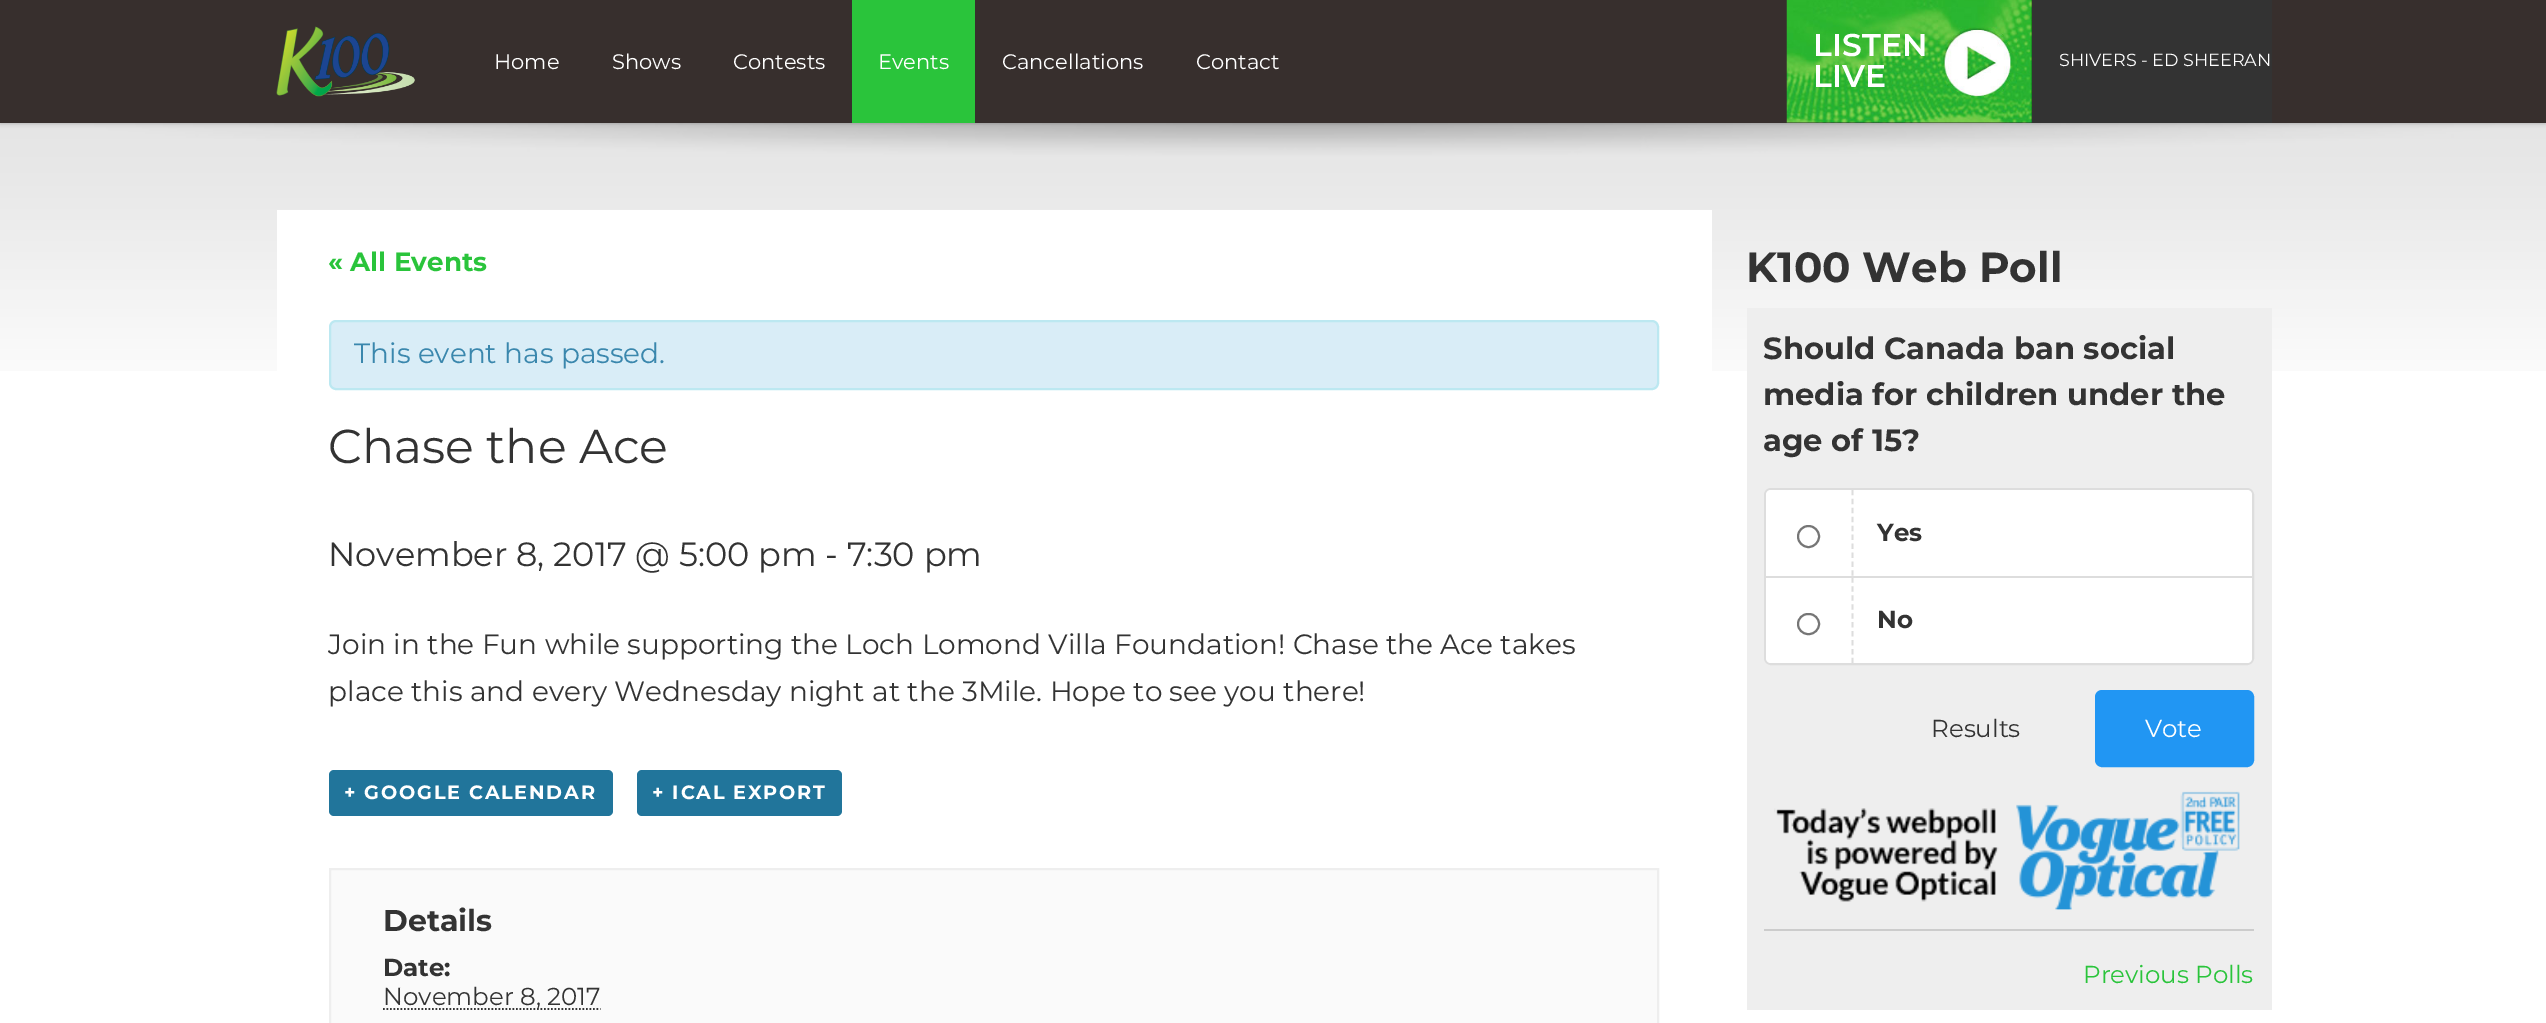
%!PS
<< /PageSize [2546 1023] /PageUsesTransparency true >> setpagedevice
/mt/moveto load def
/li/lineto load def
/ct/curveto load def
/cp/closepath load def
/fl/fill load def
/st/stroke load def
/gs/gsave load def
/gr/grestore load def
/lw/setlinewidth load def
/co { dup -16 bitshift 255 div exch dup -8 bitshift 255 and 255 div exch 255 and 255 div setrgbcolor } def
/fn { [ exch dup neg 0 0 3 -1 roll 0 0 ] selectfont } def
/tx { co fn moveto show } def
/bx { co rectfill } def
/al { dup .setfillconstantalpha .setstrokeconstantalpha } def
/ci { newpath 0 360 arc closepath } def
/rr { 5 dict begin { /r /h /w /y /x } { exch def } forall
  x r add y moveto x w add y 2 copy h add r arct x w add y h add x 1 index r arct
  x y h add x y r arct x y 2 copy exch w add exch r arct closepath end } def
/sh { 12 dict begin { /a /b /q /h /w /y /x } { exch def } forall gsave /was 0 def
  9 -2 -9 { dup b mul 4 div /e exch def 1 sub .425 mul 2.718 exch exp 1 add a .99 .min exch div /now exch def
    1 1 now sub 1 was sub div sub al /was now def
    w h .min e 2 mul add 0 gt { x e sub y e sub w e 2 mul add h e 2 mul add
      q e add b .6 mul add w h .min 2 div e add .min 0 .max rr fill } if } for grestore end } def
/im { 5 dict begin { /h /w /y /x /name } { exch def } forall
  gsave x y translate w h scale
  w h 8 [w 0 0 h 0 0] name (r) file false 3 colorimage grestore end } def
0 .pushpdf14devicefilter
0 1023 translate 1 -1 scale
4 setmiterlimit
0 0 2546 1023 16#FFFFFF bx
(media/3.raw) 0 123 2546 248 im
16#000000 co
0 0 2546 123 0 2.5 .3 sh
0 0 2546 123 16#372F2D bx
(media/1.raw) 276 26 139 71 im
852 0 123 123 16#2AC43B bx
1787 0 485 123 16#333333 bx
(media/2.raw) 1786 0 246 123 im
277 210 1435 161 16#FFFFFF bx
16#D9EDF7 co
330 321 1328 68 6 rr gs fl gr
16#BCE8F1 co
2 lw
st
16#21759B co
329 770 284 46 5 rr fl
637 770 205 46 5 rr fl
16#FAFAFA co
330 869 mt 1658 869 li 1658 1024 li 330 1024 li cp gs fl gr
16#EEEEEE co
st
16#333333 co
1.8 lw
[1.75 1.75] 0 setdash
383 1009 mt 600.5 1009 li st
1747 308 525 702 16#EEEEEE bx
16#DDDDDD co
2 lw
[] 0 setdash
1765 489 488 175 6 rr st
16#FFFFFF co
1771 490 mt 2247 490 li 2250 490 2252 492 2252 495 ct 2252 576 li 1766 576 li 1766 495 li 1766 492 1768 490 1771 490 ct cp fl
16#DDDDDD co
1.8 lw
[5.25 3.69] 0 setdash
1852.5 490 mt 1852.5 576 li st
16#767676 co
2 lw
[] 0 setdash
1808.5 536.5 10.5 ci st
1766 576 486 2 16#DDDDDD bx
16#FFFFFF co
1766 578 mt 2252 578 li 2252 658 li 2252 661 2250 663 2247 663 ct 1771 663 li 1768 663 1766 661 1766 658 ct cp fl
16#DDDDDD co
1.8 lw
[5.25 3.69] 0 setdash
1852.5 577.5 mt 1852.5 663 li st
16#767676 co
2 lw
[] 0 setdash
1798 614 21 20 10 rr st
16#2196F3 co
2096 691 157 75 6 rr gs fl gr
st
(media/4.raw) 1774 791 466 119 im
1764 929 490 2 16#CCCCCC bx
(Home) 494 69 /Montserrat-Regular 21 16#FFFFFF tx
(Shows) 612 69 /Montserrat-Regular 21 16#FFFFFF tx
(Contests) 733 69 /Montserrat-Regular 21 16#FFFFFF tx
(Events) 878 69 /Montserrat-Regular 21 16#FFFFFF tx
(Cancellations) 1002 69 /Montserrat-Regular 21 16#FFFFFF tx
(Contact) 1196 69 /Montserrat-Regular 21 16#FFFFFF tx
(LISTEN) 1813 56 /Montserrat-SemiBold 31.5 16#FFFFFF tx
(LIVE) 1813 87 /Montserrat-SemiBold 31.5 16#FFFFFF tx
(SHIVERS - ED SHEERAN) 2059 66 /Montserrat-Regular 17.5 16#FFFFFF tx
(« All Events) 328 271 /Montserrat-Bold 26.25 16#2AC43B tx
(This event has passed.) 354 363 /Montserrat-Regular 28 16#3A87AD tx
(Chase the Ace) 328 463 /Montserrat-Regular 47.5 16#333333 tx
(November 8, 2017 @ 5:00 pm) 328 566 /Montserrat-Regular 33.6 16#333333 tx
(- 7:30 pm) 825 566 /Montserrat-Regular 33.6 16#333333 tx
(Join in the Fun while supporting the Loch Lomond Villa Foundation! Chase the Ace takes) 328 654 /Montserrat-Regular 28 16#333333 tx
(place this and every Wednesday night at the 3Mile. Hope to see you there!) 328 701 /Montserrat-Regular 28 16#333333 tx
/Montserrat-Bold 19.25 fn
16#FFFFFF co
344 799 mt 1.75 0 (+ GOOGLE CALENDAR) ashow
652 799 mt 1.75 0 (+ ICAL EXPORT) ashow
(Details) 383 931 /Montserrat-Bold 30 16#333333 tx
(Date:) 383 976 /Montserrat-Bold 24.5 16#333333 tx
(November 8, 2017) 383 1005 /Montserrat-Regular 24.5 16#333333 tx
(K100 Web Poll) 1746 282 /Montserrat-Bold 42 16#333333 tx
(Should Canada ban social) 1763 359 /Montserrat-Bold 30.6 16#333333 tx
(media for children under the) 1763 405 /Montserrat-Bold 30.6 16#333333 tx
(age of 15?) 1763 451 /Montserrat-Bold 30.6 16#333333 tx
(Yes) 1877 541 /Montserrat-Bold 24.5 16#333333 tx
(No) 1877 628 /Montserrat-Bold 24.5 16#333333 tx
(Results) 1931 737 /Montserrat-Regular 24.5 16#333333 tx
(Vote) 2145 737 /Montserrat-Regular 24.5 16#FFFFFF tx
(Previous Polls) 2083 983 /Montserrat-Regular 24.5 16#2AC43B tx
.poppdf14devicefilter showpage
